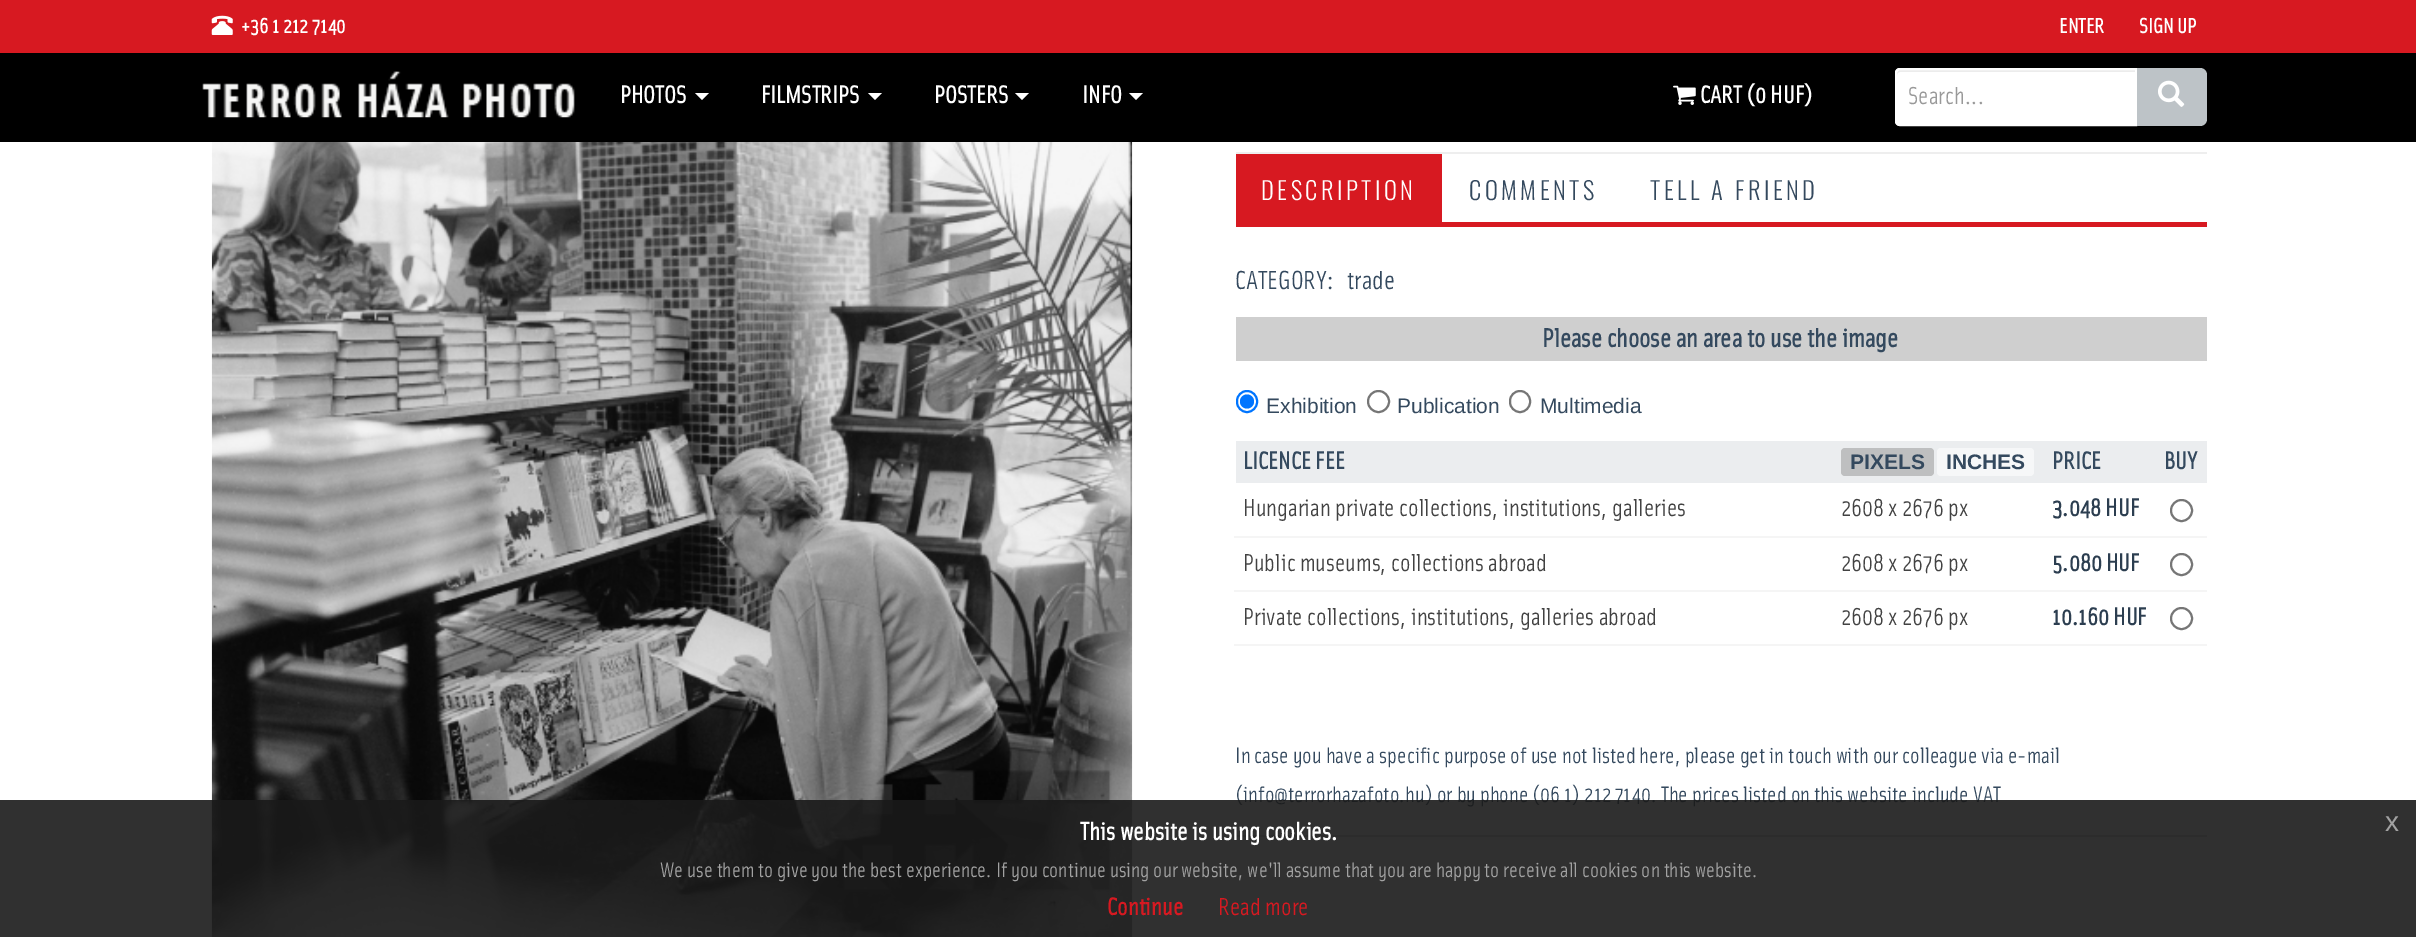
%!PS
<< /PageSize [2416 937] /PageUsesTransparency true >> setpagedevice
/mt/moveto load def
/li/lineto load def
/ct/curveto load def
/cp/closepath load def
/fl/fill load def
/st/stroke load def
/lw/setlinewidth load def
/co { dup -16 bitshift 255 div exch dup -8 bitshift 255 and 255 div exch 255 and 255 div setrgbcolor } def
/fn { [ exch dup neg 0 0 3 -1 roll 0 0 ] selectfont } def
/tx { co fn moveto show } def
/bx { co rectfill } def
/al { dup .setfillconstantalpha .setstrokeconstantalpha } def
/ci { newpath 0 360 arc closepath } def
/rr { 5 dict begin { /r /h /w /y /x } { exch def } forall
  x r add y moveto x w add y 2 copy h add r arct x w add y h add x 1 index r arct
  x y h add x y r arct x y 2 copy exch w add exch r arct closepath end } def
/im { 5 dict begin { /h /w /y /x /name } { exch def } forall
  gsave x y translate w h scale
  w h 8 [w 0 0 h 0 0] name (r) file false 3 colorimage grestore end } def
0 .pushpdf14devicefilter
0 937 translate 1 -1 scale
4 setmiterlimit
0 0 2416 937 16#FFFFFF bx
0 53 2416 89 16#000000 bx
0 0 2416 53 16#D71921 bx
(media/1.raw) 211 15 22 20 im
(media/2.raw) 202 71 373 47 im
16#FFFFFF co
695 93 mt 709 93 li 702 100 li cp fl
868 93 mt 882 93 li 875 100 li cp fl
1015 93 mt 1029 93 li 1022 100 li cp fl
1129 93 mt 1143 93 li 1136 100 li cp fl
(media/3.raw) 1673 85 23 20 im
1900 68 mt 2137 68 li 2137 126 li 1900 126 li 1897 126 1895 124 1895 121 ct 1895 73 li 1895 70 1897 68 1900 68 ct cp fl
16#ECECEC co
1900 72 mt 2135 72 li 2135 70 li 1899 70 li 1897 71 1897 73 1897 75 ct 1897 73 1899 72 1900 72 ct cp fl
16#FFFFFF co
2 lw
1900 69 mt 2136 69 li 2136 125 li 1900 125 li 1898 125 1896 123 1896 121 ct 1896 73 li 1896 71 1898 69 1900 69 ct cp st
16#BDC3C7 co
2137 68 mt 2200 68 li 2204 68 2207 71 2207 75 ct 2207 119 li 2207 123 2204 126 2200 126 ct 2137 126 li cp fl
(media/4.raw) 2158 80 27 27 im
(media/5.raw) 211 142 922 795 im
1236 152 971 2 16#EEEEEE bx
1236 222 971 5 16#D71921 bx
1236 154 206 68 16#D71921 bx
1236 835 971 2 16#DDDDDD bx
1236 317 971 44 16#CFCFCF bx
16#0075FF co
1237 391 20 21 10 rr st
1247 401.5 7 ci fl
16#767676 co
1378.5 401.5 10.5 ci st
1510 391 20 21 10 rr st
1236 441 971 42 16#EBEDEF bx
16#BEBFC0 co
1841 448 93 28 4 rr fl
16#F6F7F8 co
1937 448 97 28 4 rr fl
1234 536 973 2 16#F5F5F5 bx
16#767676 co
2181.5 510.5 10.5 ci st
1234 590 973 2 16#F5F5F5 bx
16#767676 co
2181.5 564.5 10.5 ci st
1234 644 973 2 16#F5F5F5 bx
16#767676 co
2181.5 618.5 10.5 ci st
(+36 1 212 7140) 241 33 /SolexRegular-Bold 21 16#FFFFFF tx
(ENTER) 2059 33 /SolexRegular-Bold 21 16#FFFFFF tx
(SIGN UP) 2139 33 /SolexRegular-Bold 21 16#FFFFFF tx
(PHOTOS) 620 103 /SolexRegular-Bold 24.5 16#FFFFFF tx
(FILMSTRIPS) 761 103 /SolexRegular-Bold 24.5 16#FFFFFF tx
(POSTERS) 934 103 /SolexRegular-Bold 24.5 16#FFFFFF tx
(INFO) 1082 103 /SolexRegular-Bold 24.5 16#FFFFFF tx
(CART \(0 HUF\)) 1700 103 /SolexRegular-Bold 24.5 16#FFFFFF tx
(Search...) 1908 104 /SolexRegular-Regular 24.5 16#999999 tx
/Oswald-Light 24.5 fn
16#FFFFFF co
1261 200 mt 3.5 0 (DESCRIPTION) ashow
16#34495E co
1469 200 mt 3.5 0 (COMMENTS) ashow
1650 200 mt 3.5 0 (TELL A FRIEND) ashow
(CATEGORY:) 1235 289 /SolexRegular-Regular 26.25 16#34495E tx
(trade) 1347 289 /SolexRegular-Regular 26.25 16#34495E tx
(Please choose an area to use the image) 1542 347 /SolexRegular-Bold 26.25 16#34495E tx
(Exhibition) 1266 413 /LiberationSans-Regular 21 16#34495E tx
(Publication) 1397 413 /LiberationSans-Regular 21 16#34495E tx
(Multimedia) 1540 413 /LiberationSans-Regular 21 16#34495E tx
(LICENCE FEE) 1243 469 /SolexRegular-Bold 24.5 16#34495E tx
(PIXELS) 1850 469 /LiberationSans-Bold 21 16#34495E tx
(INCHES) 1946 469 /LiberationSans-Bold 21 16#34495E tx
(PRICE) 2052 469 /SolexRegular-Bold 24.5 16#34495E tx
(BUY) 2164 469 /SolexRegular-Bold 24.5 16#34495E tx
(2608 x 2676 px) 1841 516 /SolexRegular-Regular 24.5 16#424242 tx
(3.048 HUF) 2052 516 /SolexRegular-Bold 24.5 16#2C3E50 tx
(Hungarian private collections, institutions, galleries) 1243 516 /SolexRegular-Regular 24.5 16#424242 tx
(Public museums, collections abroad) 1243 571 /SolexRegular-Regular 24.5 16#424242 tx
(2608 x 2676 px) 1841 571 /SolexRegular-Regular 24.5 16#424242 tx
(5.080 HUF) 2052 571 /SolexRegular-Bold 24.5 16#2C3E50 tx
(Private collections, institutions, galleries abroad) 1243 625 /SolexRegular-Regular 24.5 16#424242 tx
(2608 x 2676 px) 1841 625 /SolexRegular-Regular 24.5 16#424242 tx
(10.160 HUF) 2052 625 /SolexRegular-Bold 24.5 16#2C3E50 tx
(In case you have a specific purpose of use not listed here, please get in touch with our colleague via e-mail) 1235 763 /SolexRegular-Regular 22.3 16#34495E tx
(\(info@terrorhazafoto.hu\) or by phone \(06 1\) 212 7140. The prices listed on this website include VAT) 1235 802 /SolexRegular-Regular 22.3 16#34495E tx
0.9 al
0 800 2416 137 16#191919 bx
1 al
(This website is using cookies.) 1080 840 /SolexRegular-Bold 25.25 16#FFFFFF tx
(x) 2385 831 /LiberationSans-Regular 28 16#A2A2A2 tx
(We use them to give you the best experience. If you continue using our website, we'll assume that you are happy to receive all cookies on this website.) 660 877 /SolexRegular-Regular 21 16#A2A2A2 tx
(Continue) 1107 915 /SolexRegular-Bold 24.5 16#D71921 tx
(Read more) 1218 915 /SolexRegular-Regular 24.5 16#D71921 tx
.poppdf14devicefilter showpage
